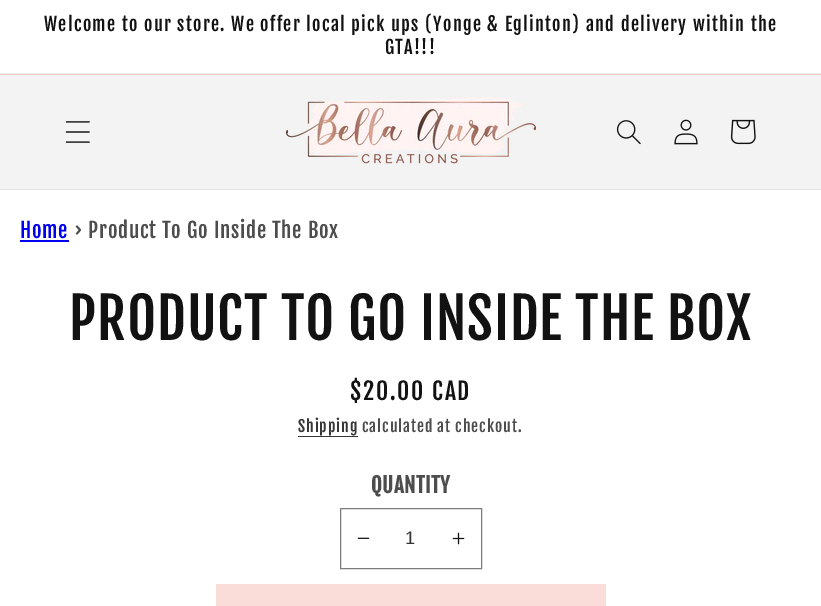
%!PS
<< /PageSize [821 606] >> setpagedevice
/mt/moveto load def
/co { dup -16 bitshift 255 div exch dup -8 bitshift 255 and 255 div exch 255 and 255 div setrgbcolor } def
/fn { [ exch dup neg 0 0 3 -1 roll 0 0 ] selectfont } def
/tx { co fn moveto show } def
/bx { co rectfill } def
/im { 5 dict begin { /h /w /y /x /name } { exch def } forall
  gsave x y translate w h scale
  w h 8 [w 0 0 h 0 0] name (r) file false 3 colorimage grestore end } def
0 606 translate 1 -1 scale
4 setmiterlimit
0 0 821 606 16#FFFFFF bx
0 73 821 1 16#ECECEC bx
0 74 821 1 16#E7CCC9 bx
0 75 821 114 16#F3F3F3 bx
0 189 821 1 16#E1E1E1 bx
(media/1.raw) 65 121 25 22 im
(media/2.raw) 286 97 250 67 im
(media/3.raw) 616 120 25 25 im
(media/4.raw) 674 119 24 26 im
(media/5.raw) 730 119 26 26 im
20 240 49 2 16#0000EE bx
298 436 60 1 16#363636 bx
(media/6.raw) 357 537 13 2 im
(media/7.raw) 452 532 13 13 im
16#7D7D7D co
340.5 508.5 141 60 rectstroke
216 584 390 22 16#FADCD9 bx
/FjallaOne-Regular 18.2 fn
16#121212 co
44 31 mt 1.3 0 (Welcome to our store. We offer local pick ups \(Yonge & Eglinton\) and delivery within the) ashow
385 54 mt 1.3 0 (GTA!!!) ashow
/FjallaOne-Regular 20.75 fn
16#0000EE co
20 238 mt .75 0 (Home) ashow
16#4D4D4D co
74 238 mt .75 0 (› Product To Go Inside The Box) ashow
/FjallaOne-Regular 56 fn
16#121212 co
69 340 mt .85 0 (PRODUCT TO GO INSIDE THE BOX) ashow
/FjallaOne-Regular 23.5 fn
350 400 mt 1.75 0 ($20.00 CAD) ashow
/FjallaOne-Regular 15.6 fn
16#363636 co
298 432 mt .9 0 (Shipping) ashow
16#4D4D4D co
362 432 mt .9 0 (calculated at checkout.) ashow
/FjallaOne-Bold 20.75 fn
371 493 mt .5 0 (QUANTITY) ashow
(1) 405 544 /LiberationSans-Regular 18.2 16#363636 tx
showpage
